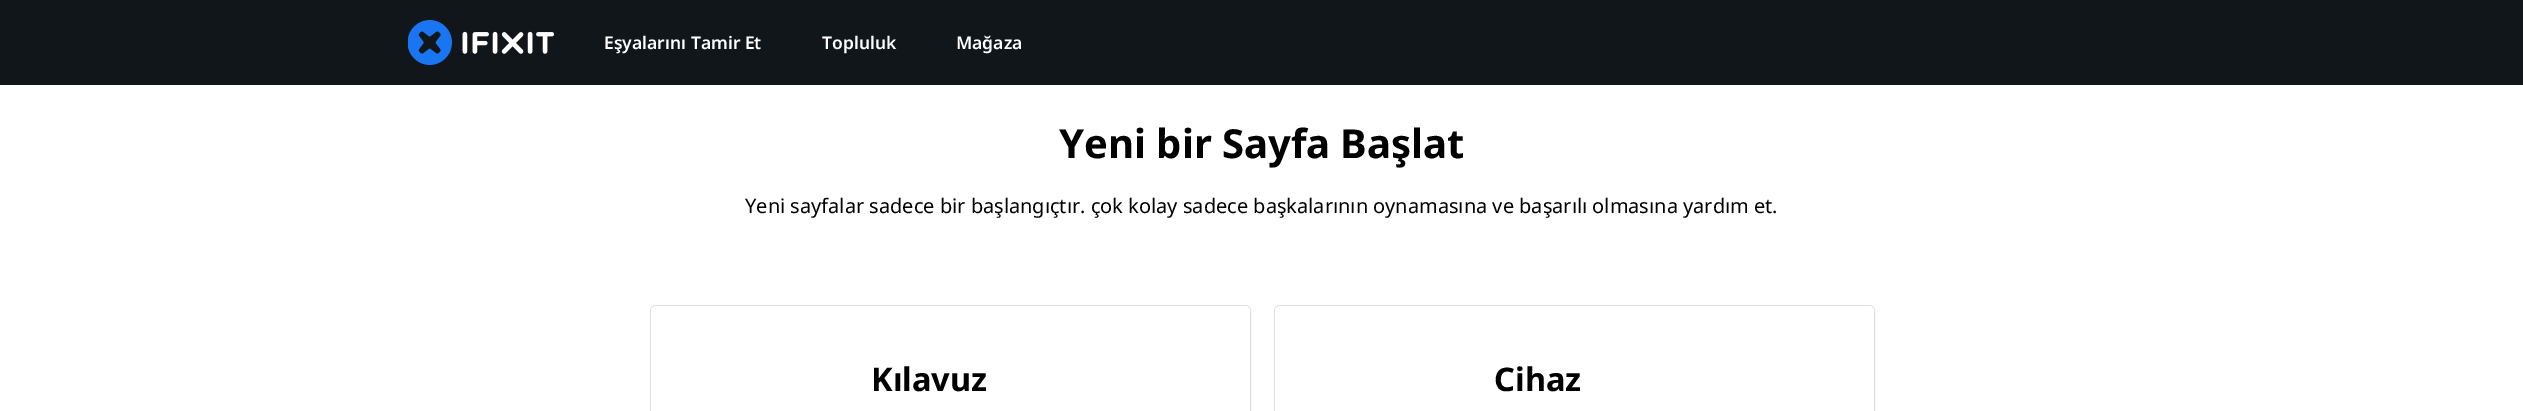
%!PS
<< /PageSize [2523 411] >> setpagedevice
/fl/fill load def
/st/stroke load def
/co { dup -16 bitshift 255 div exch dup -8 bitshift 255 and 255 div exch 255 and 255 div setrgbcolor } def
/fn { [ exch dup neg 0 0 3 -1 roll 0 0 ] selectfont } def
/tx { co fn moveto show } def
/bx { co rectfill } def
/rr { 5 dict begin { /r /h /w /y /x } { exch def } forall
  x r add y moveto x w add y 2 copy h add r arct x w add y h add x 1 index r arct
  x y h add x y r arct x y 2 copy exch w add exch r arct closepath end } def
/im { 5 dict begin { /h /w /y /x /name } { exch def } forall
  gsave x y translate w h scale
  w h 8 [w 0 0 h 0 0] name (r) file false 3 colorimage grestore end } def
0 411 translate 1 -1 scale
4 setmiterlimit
0 0 2523 411 16#FFFFFF bx
0 0 2523 85 16#11161A bx
(media/1.raw) 408 20 147 45 im
16#E0E0E0 co
650.5 305.5 600 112 5.5 rr st
16#FFFFFF co
651 306 599 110 5 rr fl
16#E0E0E0 co
1274.5 305.5 600 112 5.5 rr st
16#FFFFFF co
1275 306 599 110 5 rr fl
(Eşyalarını Tamir Et) 604 49 /NotoSans-SemiBold 17.5 16#FFFFFF tx
(Topluluk) 822 49 /NotoSans-SemiBold 17.5 16#FFFFFF tx
(Mağaza) 956 49 /NotoSans-SemiBold 17.5 16#FFFFFF tx
(Yeni bir Sayfa Başlat) 1059 158 /NotoSans-Bold 40 16#000000 tx
(Yeni sayfalar sadece bir başlangıçtır. çok kolay sadece başkalarının oynamasına ve başarılı olmasına yardım et.) 745 213 /NotoSans-Regular 20 16#000000 tx
(Kılavuz) 871 391 /NotoSans-Bold 32.5 16#000000 tx
(Cihaz) 1494 391 /NotoSans-Bold 32.5 16#000000 tx
showpage
